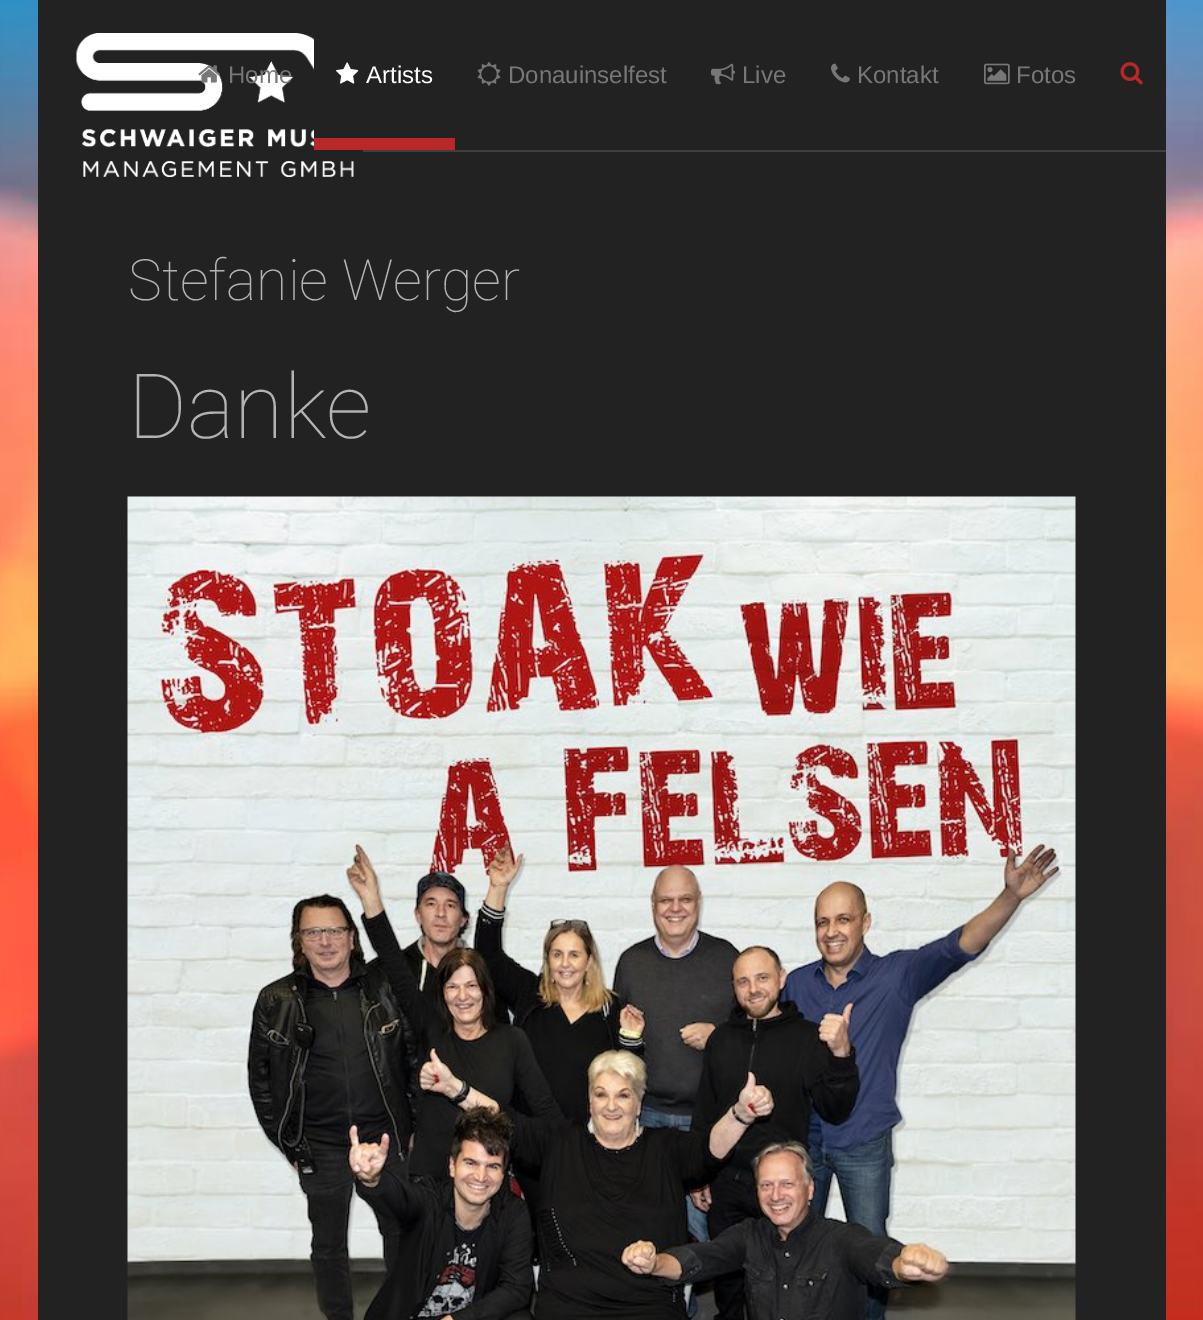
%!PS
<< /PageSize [1203 1320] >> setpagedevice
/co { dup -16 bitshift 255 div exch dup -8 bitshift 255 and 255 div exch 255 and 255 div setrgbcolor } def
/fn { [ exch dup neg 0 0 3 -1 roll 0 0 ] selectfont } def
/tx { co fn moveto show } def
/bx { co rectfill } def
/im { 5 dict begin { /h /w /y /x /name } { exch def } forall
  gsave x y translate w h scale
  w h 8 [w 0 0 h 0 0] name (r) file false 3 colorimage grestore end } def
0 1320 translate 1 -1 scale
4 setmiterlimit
0 0 1203 1320 16#FFFFFF bx
(media/1.raw) 0 0 1203 1320 im
455 0 711 150 16#222222 bx
38 0 325 152 16#222222 bx
38 152 1128 1168 16#222222 bx
(media/2.raw) 76 33 278 144 im
(media/3.raw) 198 65 22 18 im
314 0 141 138 16#222222 bx
(media/4.raw) 336 62 23 22 im
314 138 141 12 16#B92729 bx
(media/5.raw) 477 62 24 24 im
(media/6.raw) 711 63 24 22 im
(media/7.raw) 831 63 19 20 im
(media/8.raw) 984 63 26 22 im
(media/9.raw) 1120 62 23 23 im
363 150 803 2 16#3F3F3F bx
(media/10.raw) 127 496 949 824 im
(Home) 228 83 /LiberationSans-Regular 24 16#777777 tx
(Artists) 366 83 /LiberationSans-Regular 24 16#FFFFFF tx
(Donauinselfest) 508 83 /LiberationSans-Regular 24 16#777777 tx
(Live) 742 83 /LiberationSans-Regular 24 16#777777 tx
(Kontakt) 857 83 /LiberationSans-Regular 24 16#777777 tx
(Fotos) 1016 83 /LiberationSans-Regular 24 16#777777 tx
(Stefanie Werger) 128 300 /Roboto-Thin 57 16#B3B3B3 tx
(Danke) 128 438 /Roboto-Thin 90 16#B3B3B3 tx
showpage
